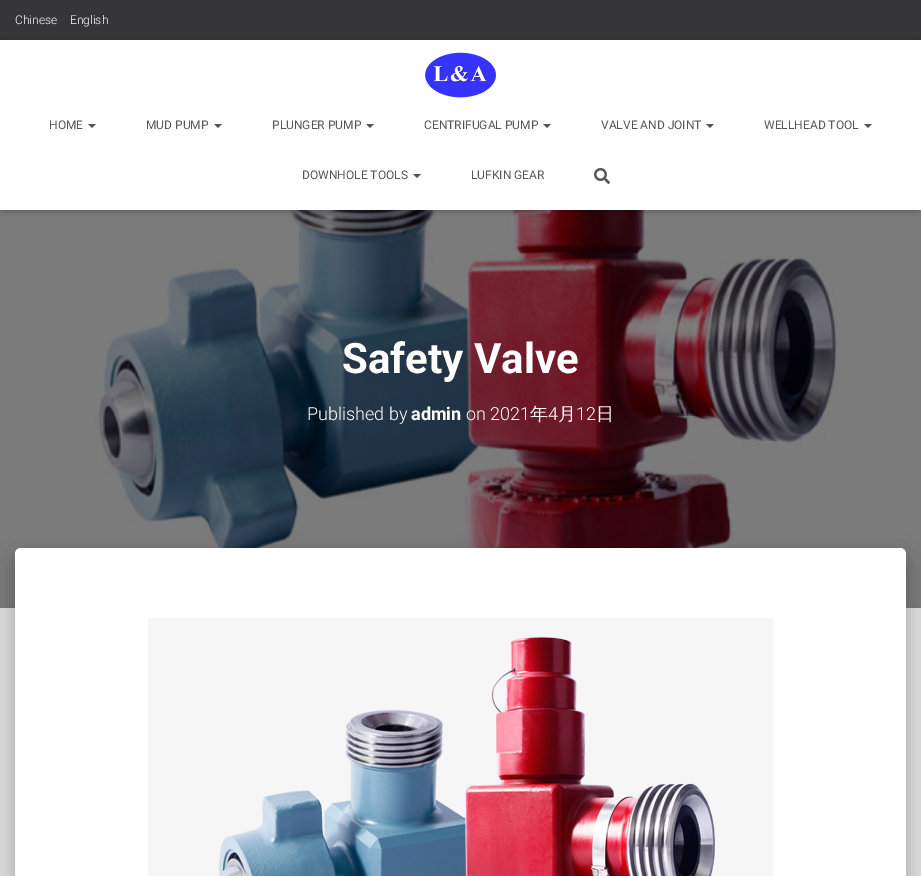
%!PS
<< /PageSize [921 876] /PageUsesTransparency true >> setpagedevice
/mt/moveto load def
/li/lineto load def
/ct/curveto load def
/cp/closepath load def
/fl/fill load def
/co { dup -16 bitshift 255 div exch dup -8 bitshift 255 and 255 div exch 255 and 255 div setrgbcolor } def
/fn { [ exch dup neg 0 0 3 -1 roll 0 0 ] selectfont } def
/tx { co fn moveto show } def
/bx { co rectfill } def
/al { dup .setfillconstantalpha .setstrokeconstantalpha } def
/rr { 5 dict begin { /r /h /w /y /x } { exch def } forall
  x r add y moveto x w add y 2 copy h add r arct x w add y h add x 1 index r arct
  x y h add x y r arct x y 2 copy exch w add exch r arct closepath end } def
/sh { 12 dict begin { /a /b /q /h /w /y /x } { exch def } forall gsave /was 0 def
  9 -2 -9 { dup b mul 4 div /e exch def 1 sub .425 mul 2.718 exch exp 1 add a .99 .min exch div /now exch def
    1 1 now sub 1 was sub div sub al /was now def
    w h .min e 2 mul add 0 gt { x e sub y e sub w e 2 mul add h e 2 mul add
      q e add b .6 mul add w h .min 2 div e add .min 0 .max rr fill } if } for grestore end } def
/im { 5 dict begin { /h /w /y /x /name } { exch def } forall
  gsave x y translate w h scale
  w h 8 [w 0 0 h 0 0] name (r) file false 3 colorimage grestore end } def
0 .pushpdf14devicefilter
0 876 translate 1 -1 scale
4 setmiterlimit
0 0 921 876 16#E5E5E5 bx
0 607 921 1 16#737373 bx
0 0 921 40 16#363537 bx
(media/3.raw) 0 210 921 398 im
16#000000 co
2 46 917 166 0 2.5 .1 sh
0 41 921 170 0 5 .12 sh
6 47 909 158 0 5 .42 sh
0 40 921 170 16#FFFFFF bx
(media/1.raw) 425 52 72 46 im
16#555555 co
88 124 mt 96 124 li 92 128 li cp fl
214 124 mt 222 124 li 218 128 li cp fl
366 124 mt 374 124 li 370 128 li cp fl
543 124 mt 551 124 li 547 128 li cp fl
706 124 mt 714 124 li 710 128 li cp fl
864 124 mt 872 124 li 868 128 li cp fl
413 174 mt 421 174 li 417 178 li cp fl
(media/2.raw) 594 168 16 16 im
16#000000 co
20 561 881 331 1 5 .2 sh
10 549 901 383 11 15 .12 sh
13 562 895 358 8 12 .14 sh
16#FFFFFF co
21 548 mt 900 548 li 903.5 548 906 550.5 906 554 ct 906 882 li 15 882 li 15 554 li 15 550.5 17.5 548 21 548 ct cp fl
(media/4.raw) 148 618 625 258 im
(Chinese) 15 24 /Roboto-Light 12 16#FFFFFF tx
(English) 70 24 /Roboto-Light 12 16#FFFFFF tx
(HOME) 49 129 /Roboto-Regular 12 16#555555 tx
(MUD PUMP) 146 129 /Roboto-Regular 12 16#555555 tx
(PLUNGER PUMP) 272 129 /Roboto-Regular 12 16#555555 tx
(CENTRIFUGAL PUMP) 424 129 /Roboto-Regular 12 16#555555 tx
(VALVE AND JOINT) 601 129 /Roboto-Regular 12 16#555555 tx
(WELLHEAD TOOL) 764 129 /Roboto-Regular 12 16#555555 tx
(DOWNHOLE TOOLS) 302 179 /Roboto-Regular 12 16#555555 tx
(LUFKIN GEAR) 471 179 /Roboto-Regular 12 16#555555 tx
(Safety Valve) 342 373 /Roboto-Bold 42 16#FFFFFF tx
(Published by) 307 420 /Roboto-Light 18 16#FFFFFF tx
(admin) 411 420 /Roboto-Bold 18 16#FFFFFF tx
(on 2021) 466 420 /Roboto-Light 18 16#FFFFFF tx
(年) 530 420 /WenQuanYiZenHei-Medium 18 16#FFFFFF tx
(4) 548 420 /Roboto-Light 18 16#FFFFFF tx
(月) 558 420 /WenQuanYiZenHei-Medium 18 16#FFFFFF tx
(12) 576 420 /Roboto-Light 18 16#FFFFFF tx
(日) 596 420 /WenQuanYiZenHei-Medium 18 16#FFFFFF tx
.poppdf14devicefilter showpage
